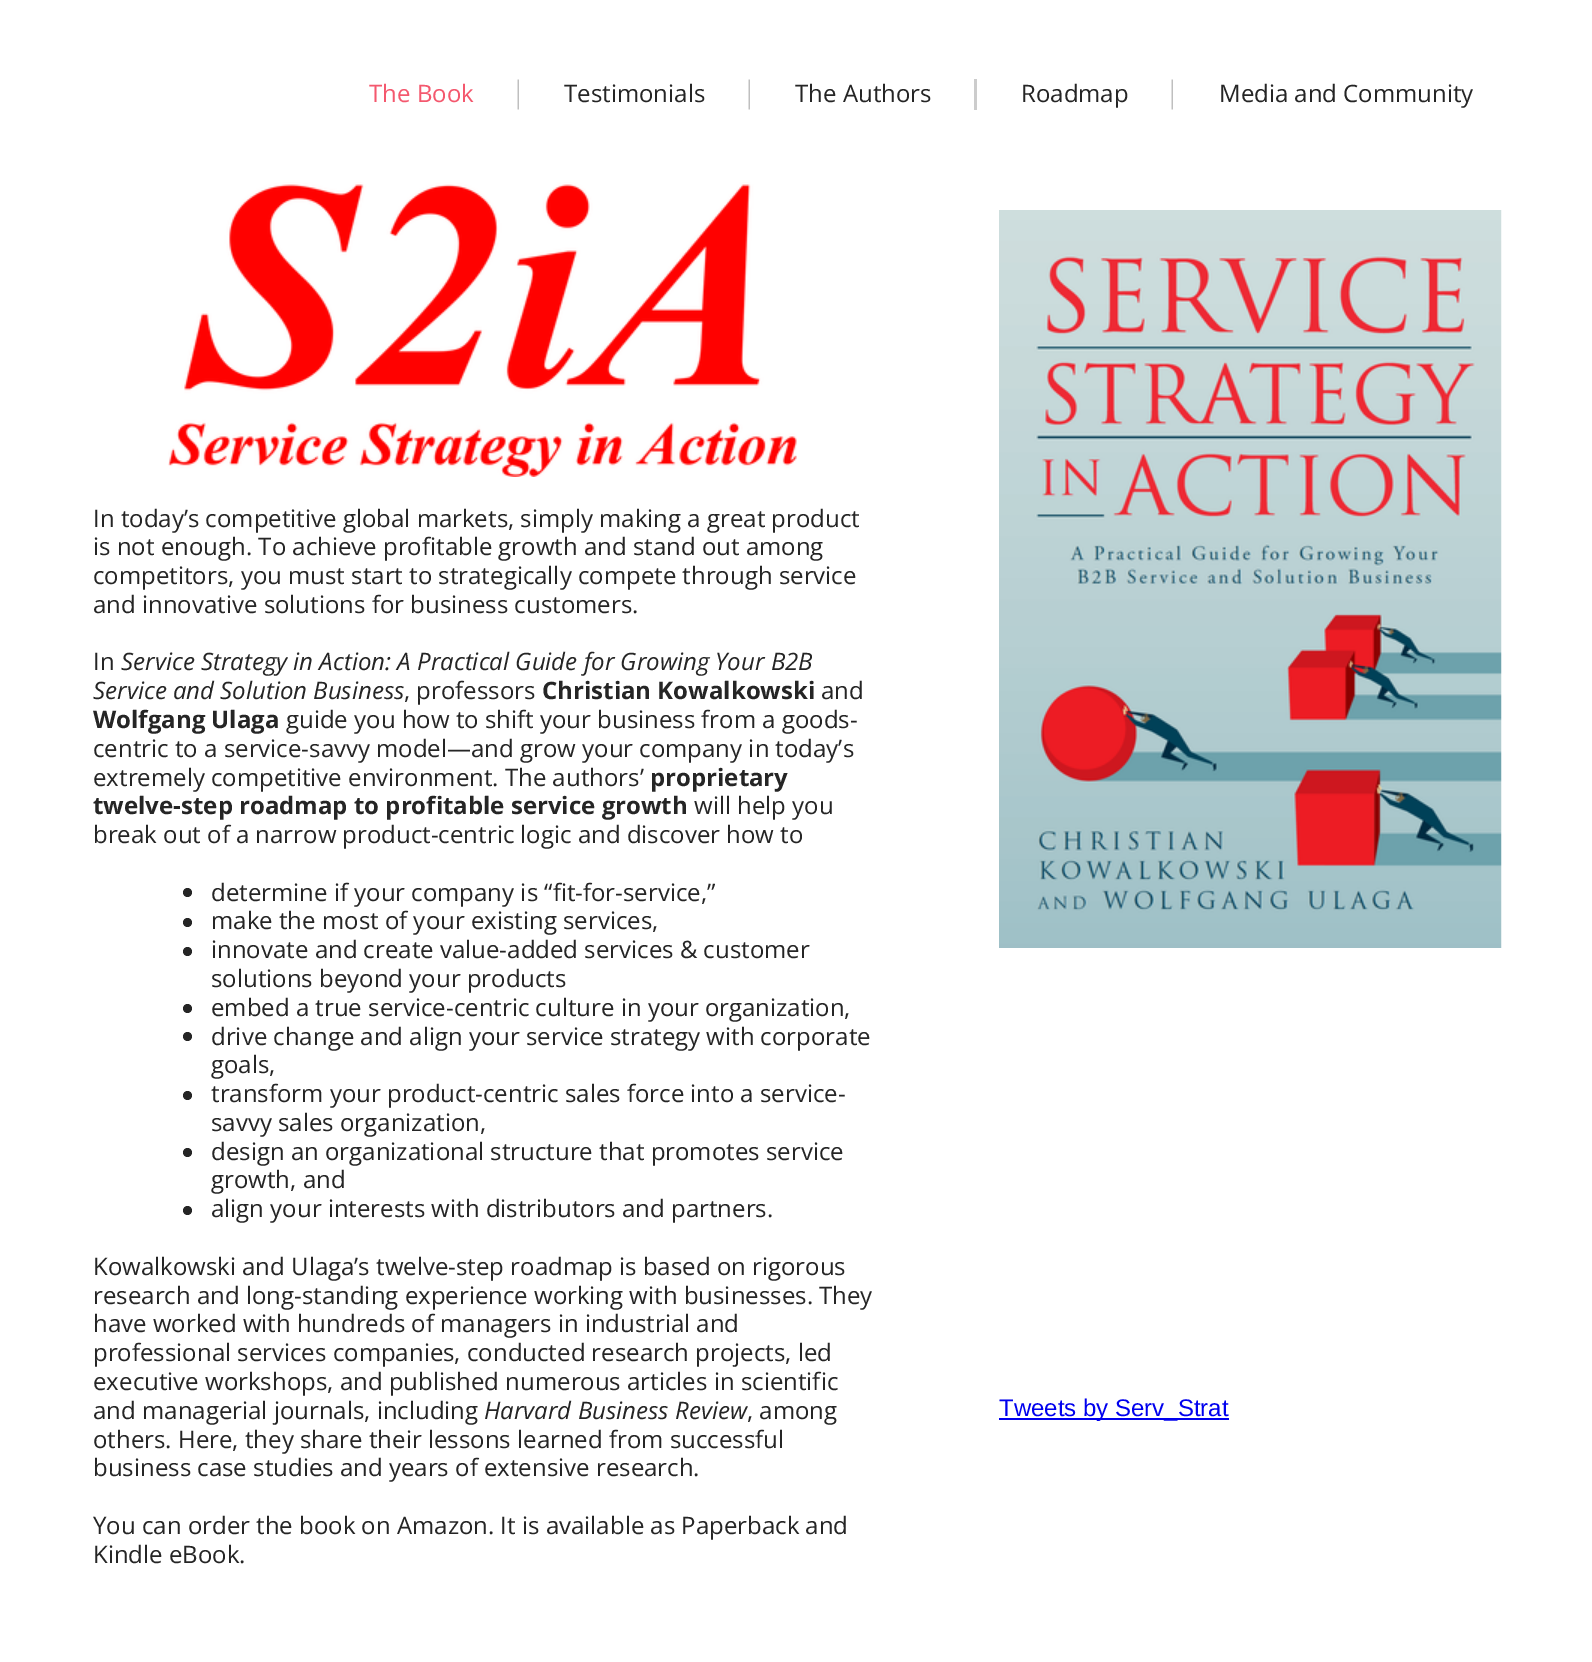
%!PS
<< /PageSize [1592 1662] >> setpagedevice
/fl/fill load def
/co { dup -16 bitshift 255 div exch dup -8 bitshift 255 and 255 div exch 255 and 255 div setrgbcolor } def
/fn { [ exch dup neg 0 0 3 -1 roll 0 0 ] selectfont } def
/tx { co fn moveto show } def
/bx { co rectfill } def
/ci { newpath 0 360 arc closepath } def
/im { 5 dict begin { /h /w /y /x /name } { exch def } forall
  gsave x y translate w h scale
  w h 8 [w 0 0 h 0 0] name (r) file false 3 colorimage grestore end } def
0 1662 translate 1 -1 scale
4 setmiterlimit
0 0 1592 1662 16#FFFFFF bx
(media/1.raw) 517 79 2 31 im
(media/1.raw) 748 79 2 31 im
974 79 3 31 16#CCCCCC bx
(media/1.raw) 1171 79 2 31 im
(media/2.raw) 168 182 629 295 im
(media/3.raw) 999 210 503 738 im
16#252525 co
187.5 892.5 4.5 ci fl
187.5 922.5 4.5 ci fl
187.5 951.5 4.5 ci fl
187.5 1008.5 4.5 ci fl
187.5 1036.5 4.5 ci fl
187.5 1095.5 4.5 ci fl
187.5 1152.5 4.5 ci fl
187.5 1210.5 4.5 ci fl
999 1418 230 2 16#0000EE bx
(The Book) 369 102 /OpenSans-Regular 24 16#F4586E tx
(Testimonials) 564 102 /OpenSans-Regular 24 16#252525 tx
(The Authors) 795 102 /OpenSans-Regular 24 16#252525 tx
(Roadmap) 1021 102 /OpenSans-Regular 24 16#252525 tx
(Media and Community) 1219 102 /OpenSans-Regular 24 16#252525 tx
(In today’s competitive global markets, simply making a great product) 93 527 /OpenSans-Regular 24 16#252525 tx
(is not enough. To achieve profitable growth and stand out among) 93 555 /OpenSans-Regular 24 16#252525 tx
(competitors, you must start to strategically compete through service) 93 584 /OpenSans-Regular 24 16#252525 tx
(and innovative solutions for business customers.) 93 613 /OpenSans-Regular 24 16#252525 tx
(In) 93 670 /OpenSans-Regular 24 16#252525 tx
(Service Strategy in Action: A Practical Guide for Growing Your B2B) 121 670 /OpenSans-Italic 24 16#252525 tx
(Service and Solution Business) 93 699 /OpenSans-Italic 24 16#252525 tx
(, professors) 404 699 /OpenSans-Regular 24 16#252525 tx
(Christian Kowalkowski) 542 699 /OpenSans-Bold 24 16#252525 tx
(and) 821 699 /OpenSans-Regular 24 16#252525 tx
(Wolfgang Ulaga) 93 728 /OpenSans-Bold 24 16#252525 tx
(guide you how to shift your business from a goods-) 286 728 /OpenSans-Regular 24 16#252525 tx
(centric to a service-savvy model—and grow your company in today’s) 93 757 /OpenSans-Regular 24 16#252525 tx
(extremely competitive environment. The authors’) 93 786 /OpenSans-Regular 24 16#252525 tx
(proprietary) 650 786 /OpenSans-Bold 24 16#252525 tx
(twelve-step roadmap to profitable service growth) 93 814 /OpenSans-Bold 24 16#252525 tx
(will help you) 694 814 /OpenSans-Regular 24 16#252525 tx
(break out of a narrow product-centric logic and discover how to) 93 843 /OpenSans-Regular 24 16#252525 tx
(determine if your company is “fit-for-service,”) 211 901 /OpenSans-Regular 24 16#252525 tx
(make the most of your existing services,) 211 929 /OpenSans-Regular 24 16#252525 tx
(innovate and create value-added services & customer) 211 958 /OpenSans-Regular 24 16#252525 tx
(solutions beyond your products) 211 987 /OpenSans-Regular 24 16#252525 tx
(embed a true service-centric culture in your organization,) 211 1016 /OpenSans-Regular 24 16#252525 tx
(drive change and align your service strategy with corporate) 211 1045 /OpenSans-Regular 24 16#252525 tx
(goals,) 211 1073 /OpenSans-Regular 24 16#252525 tx
(transform your product-centric sales force into a service-) 211 1102 /OpenSans-Regular 24 16#252525 tx
(savvy sales organization,) 211 1131 /OpenSans-Regular 24 16#252525 tx
(design an organizational structure that promotes service) 211 1160 /OpenSans-Regular 24 16#252525 tx
(growth, and) 211 1188 /OpenSans-Regular 24 16#252525 tx
(align your interests with distributors and partners.) 211 1217 /OpenSans-Regular 24 16#252525 tx
(Kowalkowski and Ulaga’s twelve-step roadmap is based on rigorous) 93 1275 /OpenSans-Regular 24 16#252525 tx
(research and long-standing experience working with businesses. They) 93 1304 /OpenSans-Regular 24 16#252525 tx
(have worked with hundreds of managers in industrial and) 93 1332 /OpenSans-Regular 24 16#252525 tx
(professional services companies, conducted research projects, led) 93 1361 /OpenSans-Regular 24 16#252525 tx
(executive workshops, and published numerous articles in scientific) 93 1390 /OpenSans-Regular 24 16#252525 tx
(and managerial journals, including) 93 1419 /OpenSans-Regular 24 16#252525 tx
(Harvard Business Review) 484 1419 /OpenSans-Italic 24 16#252525 tx
(, among) 747 1419 /OpenSans-Regular 24 16#252525 tx
(others. Here, they share their lessons learned from successful) 93 1448 /OpenSans-Regular 24 16#252525 tx
(business case studies and years of extensive research.) 93 1476 /OpenSans-Regular 24 16#252525 tx
(You can order the book on Amazon. It is available as Paperback and) 93 1534 /OpenSans-Regular 24 16#252525 tx
(Kindle eBook.) 93 1563 /OpenSans-Regular 24 16#252525 tx
(Tweets by Serv_Strat) 999 1416 /LiberationSans-Regular 24 16#0000EE tx
showpage
